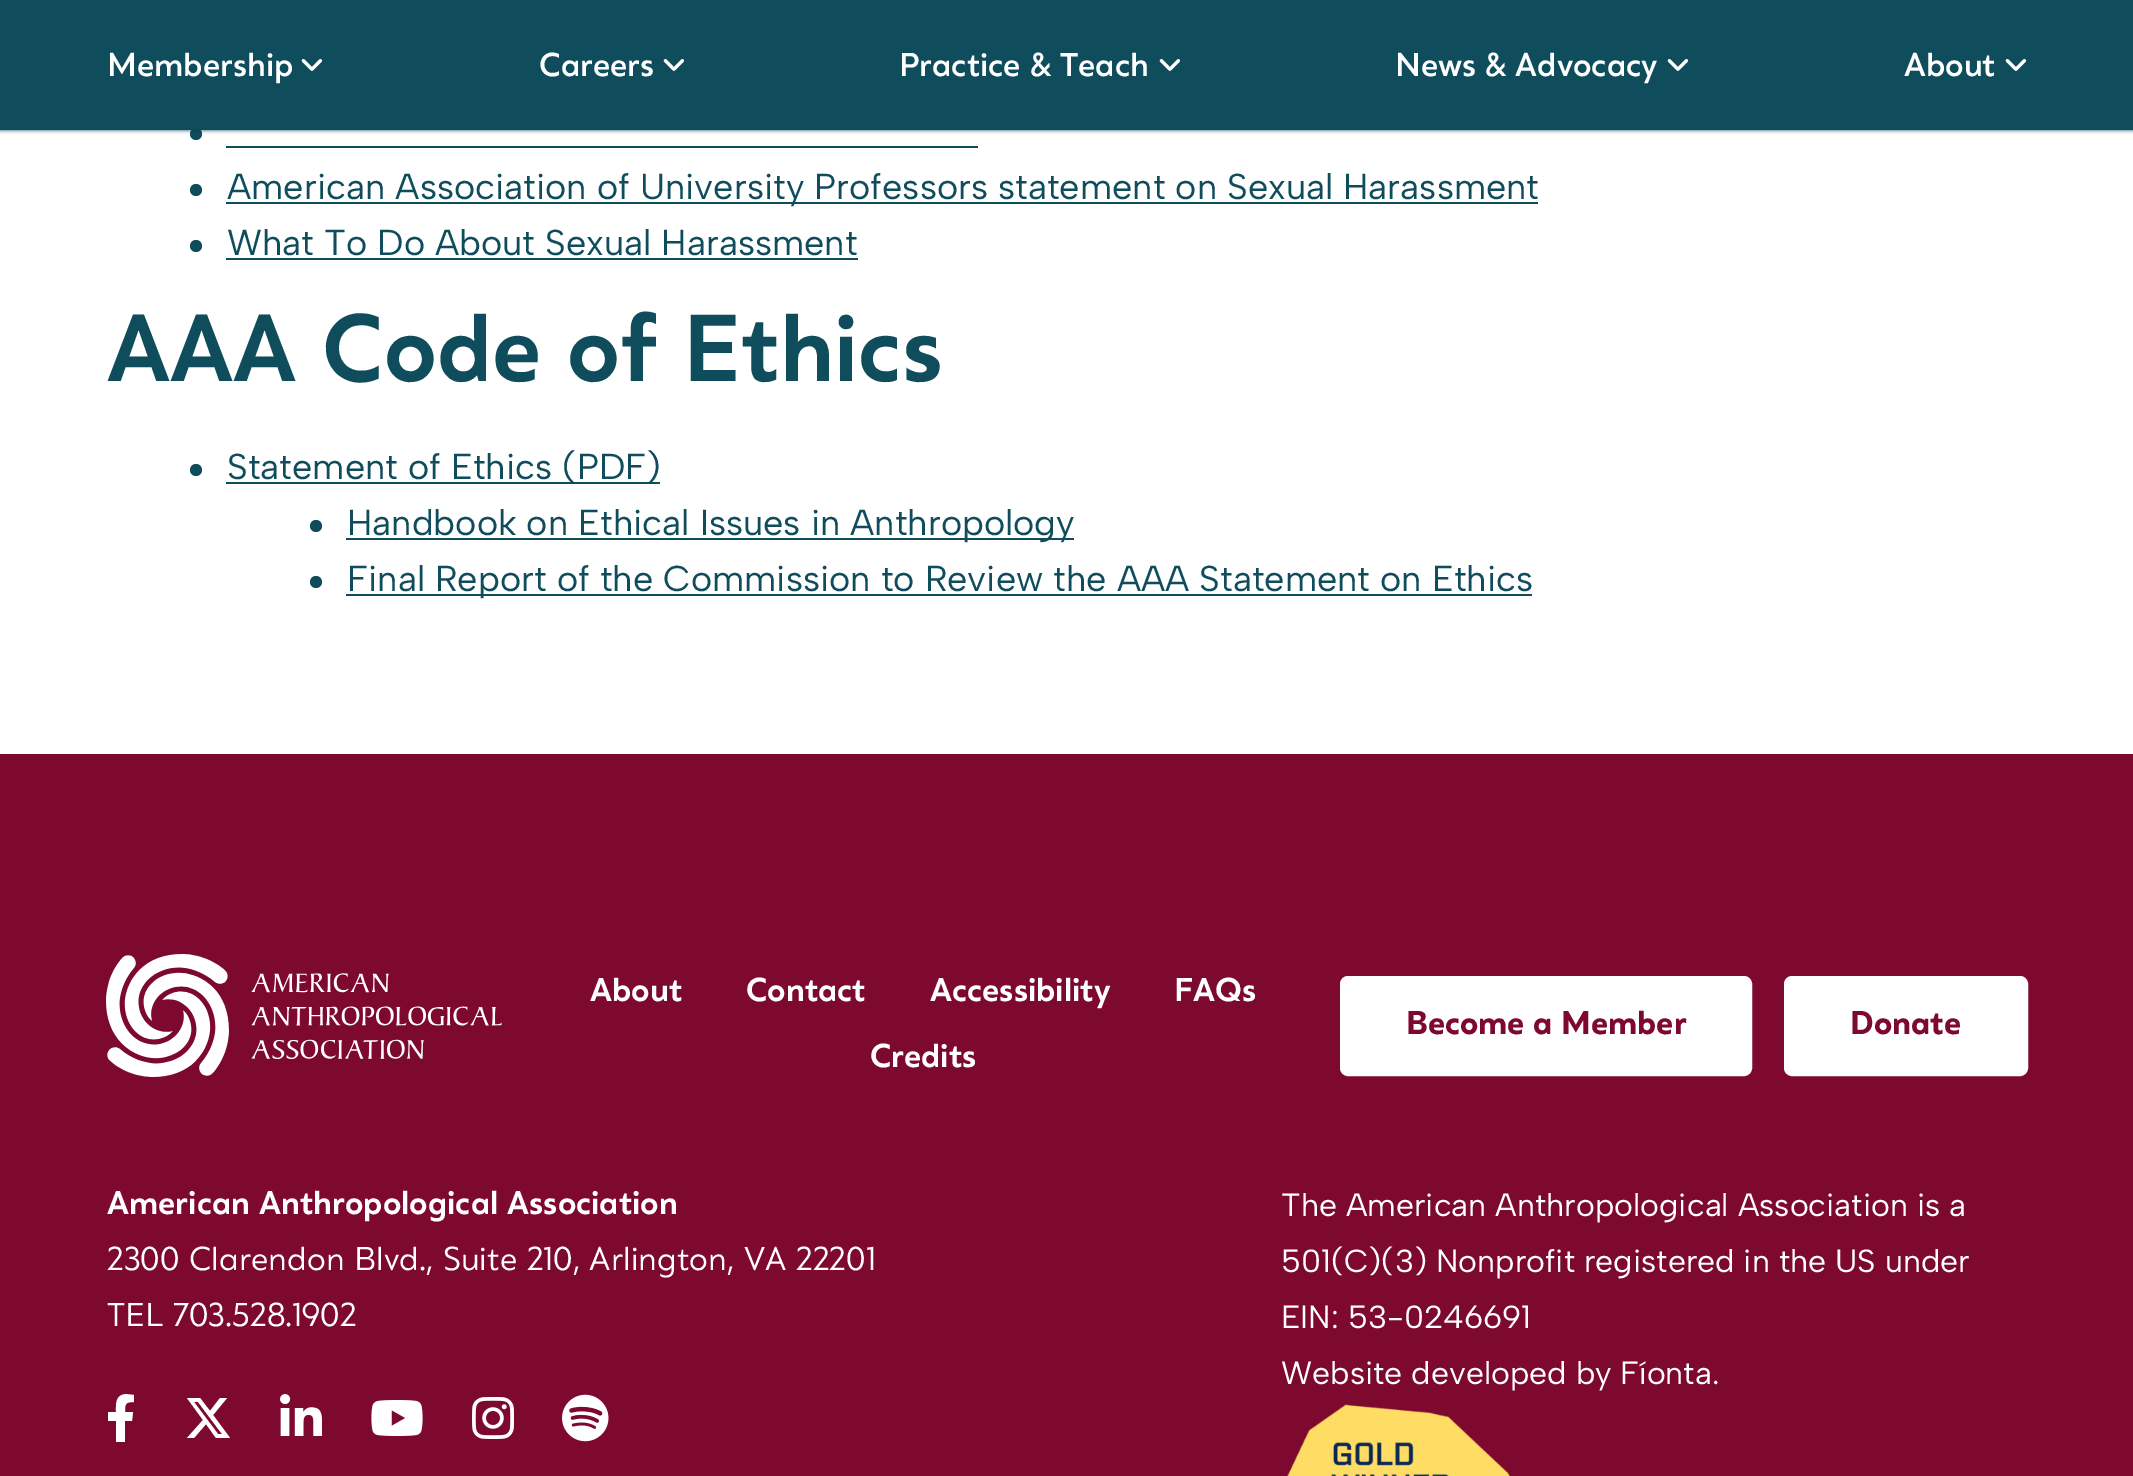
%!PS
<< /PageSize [2133 1476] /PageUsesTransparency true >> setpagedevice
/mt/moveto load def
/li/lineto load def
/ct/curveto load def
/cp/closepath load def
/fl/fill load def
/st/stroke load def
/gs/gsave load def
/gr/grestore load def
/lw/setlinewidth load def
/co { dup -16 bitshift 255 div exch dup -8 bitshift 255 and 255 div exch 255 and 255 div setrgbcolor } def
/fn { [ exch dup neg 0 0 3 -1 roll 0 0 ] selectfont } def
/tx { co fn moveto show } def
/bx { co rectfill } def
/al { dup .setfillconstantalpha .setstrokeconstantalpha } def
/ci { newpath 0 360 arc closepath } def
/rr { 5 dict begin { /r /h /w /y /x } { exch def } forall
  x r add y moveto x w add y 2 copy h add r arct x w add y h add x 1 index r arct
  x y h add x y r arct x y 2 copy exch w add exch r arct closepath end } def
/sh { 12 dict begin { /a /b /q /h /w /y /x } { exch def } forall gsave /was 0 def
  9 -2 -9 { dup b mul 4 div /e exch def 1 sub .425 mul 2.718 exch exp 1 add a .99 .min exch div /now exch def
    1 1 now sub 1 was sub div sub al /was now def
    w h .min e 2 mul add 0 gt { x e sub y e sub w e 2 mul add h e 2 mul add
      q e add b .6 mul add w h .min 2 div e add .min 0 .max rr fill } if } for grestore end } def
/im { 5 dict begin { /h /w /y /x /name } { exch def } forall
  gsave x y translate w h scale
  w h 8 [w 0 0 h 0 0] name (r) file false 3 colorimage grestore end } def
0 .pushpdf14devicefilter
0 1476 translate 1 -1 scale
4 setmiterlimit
0 0 2133 1476 16#FFFFFF bx
16#0F4C5C co
196 134 6 ci fl
16#023A48 co
0 0 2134 130 0 2 1 sh
0 0 2133 130 16#0F4C5C bx
(media/1.raw) 301 59 22 12 im
(media/1.raw) 663 59 22 12 im
(media/1.raw) 1159 59 22 12 im
(media/1.raw) 1667 59 22 12 im
(media/1.raw) 2005 59 22 12 im
226 146 752 2 16#0F4C5C bx
196 190 6 ci fl
226 202 1312 2 16#0F4C5C bx
196 246 6 ci fl
226 258 632 2 16#0F4C5C bx
196 470 6 ci fl
226 482 434 2 16#0F4C5C bx
316 526 6 ci fl
346 538 728 2 16#0F4C5C bx
316 582 6 ci fl
346 594 1186 2 16#0F4C5C bx
0 754 2133 722 16#7D092F bx
(media/2.raw) 106 954 396 123 im
16#FFFFFF co
1341 977 410 98 7 rr gs fl gr
2 lw
st
1785 977 242 98 7 rr gs fl gr
st
132 1421 mt 133 1412 li 125 1412 li 125 1404 125 1402 134 1402 ct 134 1395 li 126 1394 li 115 1395 116 1404 116 1412 ct 108 1412 li 108 1421 li 116 1421 li 116 1442 li 125 1442 li 125 1421 li cp fl
220 1398 mt 227 1398 li 213 1415 li 230 1438 li 216 1438 li 206 1424 li 194 1438 li 187 1438 li 203 1420 li 187 1398 li 200 1398 li 210 1411 li cp 218 1434 mt 222 1434 li 198 1402 li 194 1402 li cp fl
(media/3.raw) 280 1394 42 42 im
(media/4.raw) 371 1400 52 36 im
(media/5.raw) 472 1397 42 42 im
(media/6.raw) 562 1394 47 48 im
(media/7.raw) 1287 1404 223 72 im
(Membership) 107 76 /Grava-Medium 32 16#FFFFFF tx
(Careers) 539 76 /Grava-Medium 32 16#FFFFFF tx
(Practice & Teach) 899 76 /Grava-Medium 32 16#FFFFFF tx
(News & Advocacy) 1395 76 /Grava-Medium 32 16#FFFFFF tx
(About) 1904 76 /Grava-Medium 32 16#FFFFFF tx
(American Association of University Professors statement on Sexual Harassment) 227 199 /AlbertSans-Regular 36 16#0F4C5C tx
(What To Do About Sexual Harassment) 227 255 /AlbertSans-Regular 36 16#0F4C5C tx
(AAA Code of Ethics) 107 381 /Grava-SemiBold 92 16#0F4C5C tx
(Statement of Ethics \(PDF\)) 227 479 /AlbertSans-Regular 36 16#0F4C5C tx
(Handbook on Ethical Issues in Anthropology) 347 535 /AlbertSans-Regular 36 16#0F4C5C tx
(Final Report of the Commission to Review the AAA Statement on Ethics) 347 591 /AlbertSans-Regular 36 16#0F4C5C tx
(About) 590 1001 /Grava-SemiBold 32 16#FFFFFF tx
(Contact) 746 1001 /Grava-SemiBold 32 16#FFFFFF tx
(Accessibility) 930 1001 /Grava-SemiBold 32 16#FFFFFF tx
(FAQs) 1174 1001 /Grava-SemiBold 32 16#FFFFFF tx
(Credits) 870 1067 /Grava-SemiBold 32 16#FFFFFF tx
(Become a Member) 1406 1034 /Grava-Bold 32 16#7D092F tx
(Donate) 1850 1034 /Grava-Bold 32 16#7D092F tx
(American Anthropological Association) 107 1214 /Grava-SemiBold 32 16#FFFFFF tx
(2300 Clarendon Blvd., Suite 210, Arlington, VA 22201) 107 1270 /Grava-Light 32 16#FFFFFF tx
(TEL 703.528.1902) 107 1326 /Grava-Light 32 16#FFFFFF tx
(The American Anthropological Association is a) 1281 1216 /AlbertSans-Regular 32 16#FFFFFF tx
(501\(C\)\(3\) Nonprofit registered in the US under) 1281 1272 /AlbertSans-Regular 32 16#FFFFFF tx
(EIN: 53-0246691) 1281 1328 /AlbertSans-Regular 32 16#FFFFFF tx
(Website developed by Fíonta.) 1281 1384 /AlbertSans-Regular 32 16#FFFFFF tx
.poppdf14devicefilter showpage
